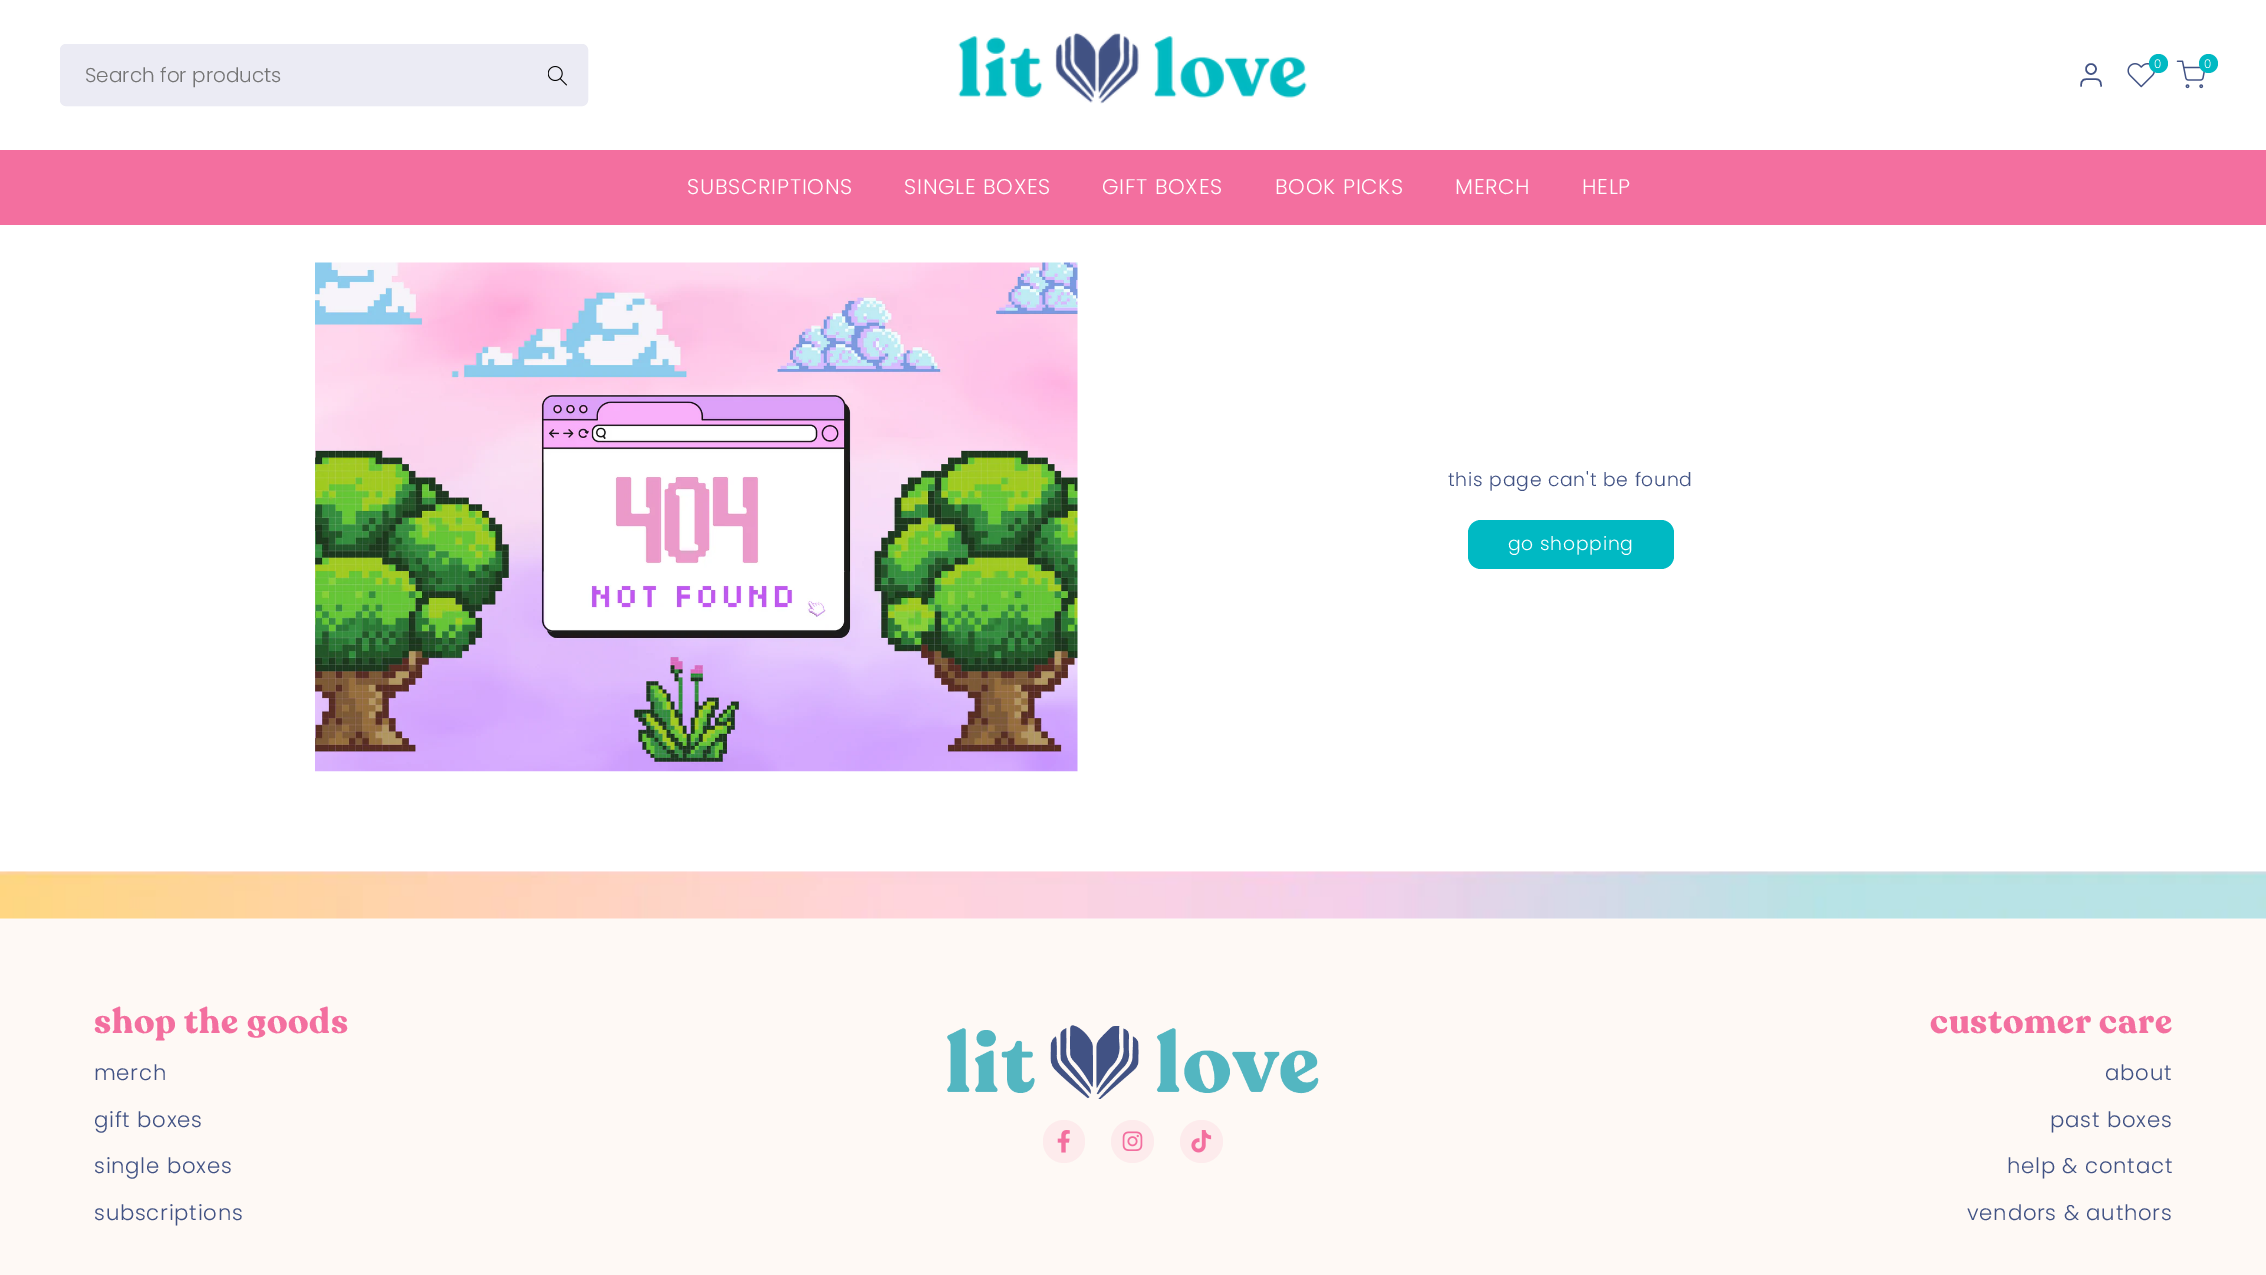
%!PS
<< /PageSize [2266 1275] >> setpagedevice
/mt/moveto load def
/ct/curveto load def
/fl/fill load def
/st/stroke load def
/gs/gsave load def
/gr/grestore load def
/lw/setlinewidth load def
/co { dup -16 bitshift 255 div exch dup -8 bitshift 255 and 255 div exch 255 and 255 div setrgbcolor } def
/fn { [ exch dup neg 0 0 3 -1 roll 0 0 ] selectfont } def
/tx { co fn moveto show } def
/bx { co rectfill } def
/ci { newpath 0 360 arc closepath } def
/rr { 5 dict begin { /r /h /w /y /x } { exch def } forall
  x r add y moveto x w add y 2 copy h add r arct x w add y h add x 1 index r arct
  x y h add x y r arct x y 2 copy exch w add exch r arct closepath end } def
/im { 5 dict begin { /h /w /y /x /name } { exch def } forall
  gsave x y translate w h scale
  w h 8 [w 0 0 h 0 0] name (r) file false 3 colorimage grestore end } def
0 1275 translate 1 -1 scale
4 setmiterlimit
0 0 2266 1275 16#FFFFFF bx
(media/1.raw) 958 32 349 72 im
16#415284 co
1.5 lw
1 setlinecap
1 setlinejoin
2101 86 mt 2101 78.5 2098 79 2091 79 ct 2084.5 79 2081 78.5 2081 86 ct st
0 setlinecap
0 setlinejoin
2091 69 5 ci st
(media/2.raw) 2127 63 28 25 im
16#00B9C3 co
2158.5 63.5 9.5 ci fl
(media/3.raw) 2176 60 29 29 im
2208.5 63.5 9.5 ci fl
16#EBEBF4 co
60.5 44.5 527 61 5.5 rr gs fl gr
1 lw
st
(media/4.raw) 548 66 19 20 im
0 150 2266 75 16#F36F9F bx
(media/5.raw) 315 262 763 510 im
16#00B9C3 co
1468 520 206 49 13 rr fl
(media/6.raw) 0 871 2266 48 im
0 919 2266 356 16#FEF9F5 bx
(media/7.raw) 947 1025 372 74 im
16#FDEBEC co
1043 1120 42 43 21 rr fl
(media/8.raw) 1057 1130 13 23 im
1132.5 1141.5 21.5 ci fl
(media/9.raw) 1122 1131 21 20 im
1201.5 1141.5 21.5 ci fl
(media/10.raw) 1191 1130 21 23 im
/Poppins-Light 12 fn
16#FFFFFF co
2154 68 mt .75 0 (0) ashow
2204 68 mt .75 0 (0) ashow
(Search for products) 85 82 /Poppins-Light 20 16#757575 tx
/Poppins-Light 21.25 fn
16#FFFFFF co
687 194 mt .75 0 (SUBSCRIPTIONS) ashow
904 194 mt .75 0 (SINGLE BOXES) ashow
1102 194 mt .75 0 (GIFT BOXES) ashow
1275 194 mt .75 0 (BOOK PICKS) ashow
1455 194 mt .75 0 (MERCH) ashow
1582 194 mt .75 0 (HELP) ashow
/Poppins-Light 18.75 fn
16#415284 co
1448 486 mt .75 0 (this page can't be found) ashow
16#FFFFFF co
1508 550 mt .75 0 (go shopping) ashow
/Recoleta-Bold 35 fn
16#F36F9F co
94 1033 mt .75 0 (shop the goods) ashow
/Poppins-Light 21.25 fn
16#415284 co
94 1080 mt .75 0 (merch) ashow
94 1127 mt .75 0 (gift boxes) ashow
94 1173 mt .75 0 (single boxes) ashow
94 1220 mt .75 0 (subscriptions) ashow
/Recoleta-Bold 35 fn
16#F36F9F co
1930 1033 mt .75 0 (customer care) ashow
/Poppins-Light 21.25 fn
16#415284 co
2105 1080 mt .75 0 (about) ashow
2050 1127 mt .75 0 (past boxes) ashow
2007 1173 mt .75 0 (help & contact) ashow
1967 1220 mt .75 0 (vendors & authors) ashow
showpage
